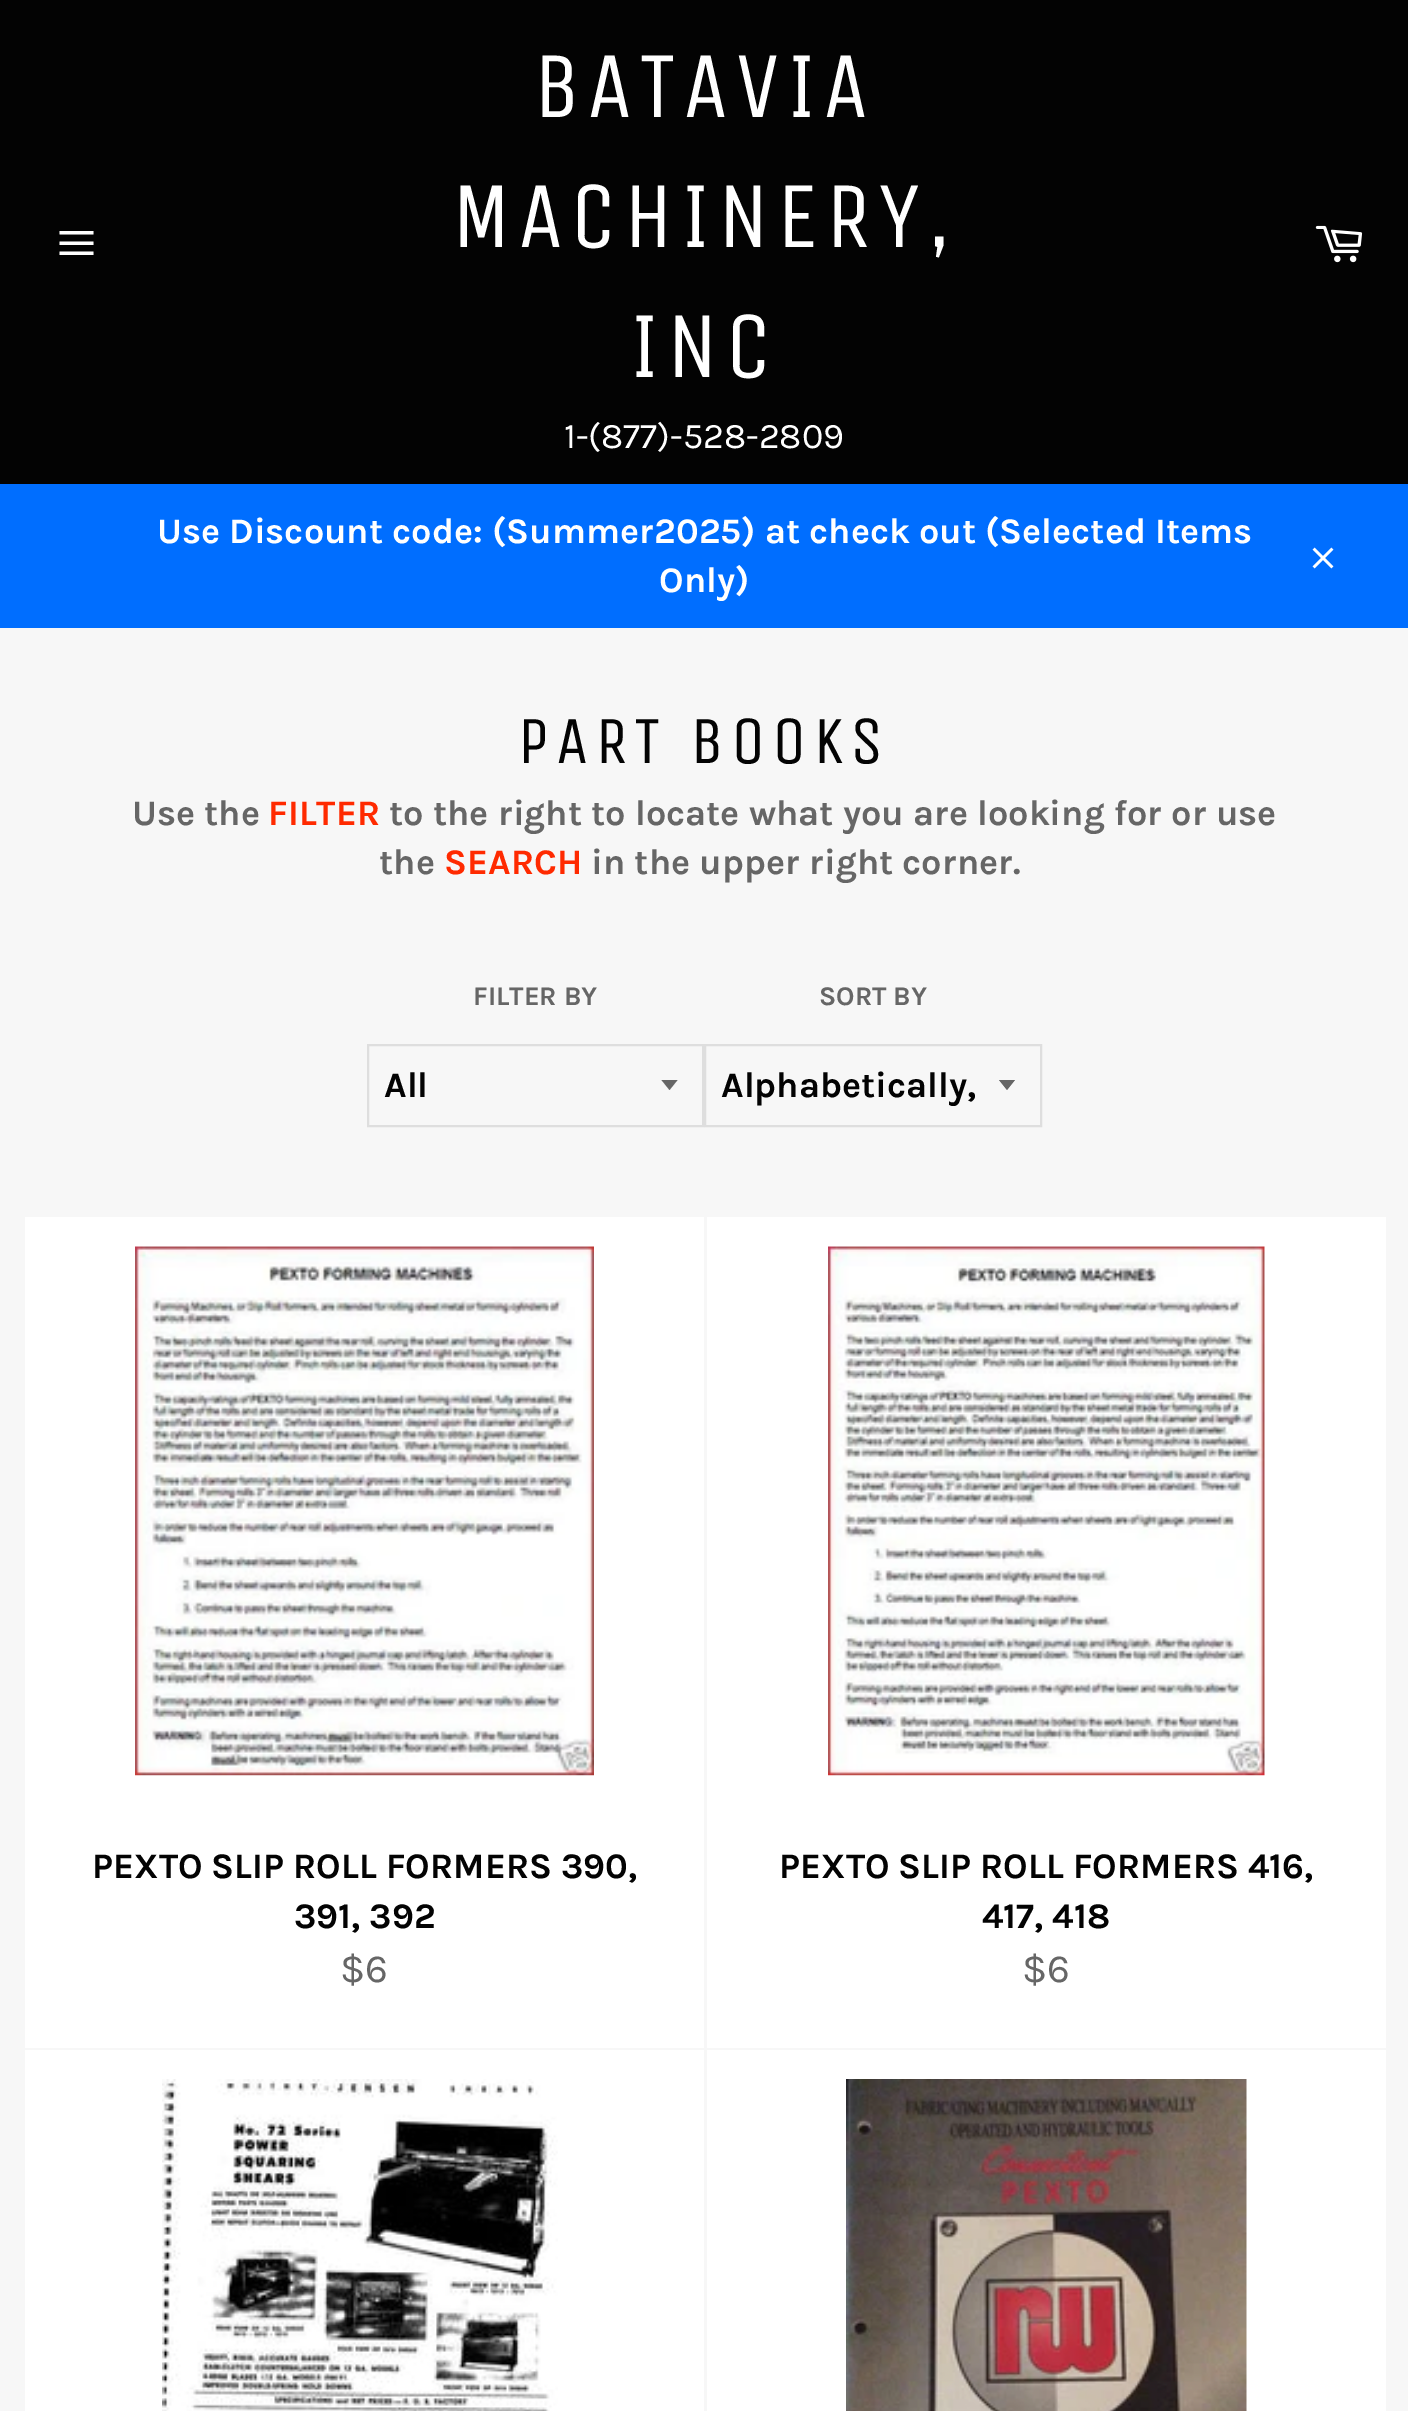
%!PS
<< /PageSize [1408 2411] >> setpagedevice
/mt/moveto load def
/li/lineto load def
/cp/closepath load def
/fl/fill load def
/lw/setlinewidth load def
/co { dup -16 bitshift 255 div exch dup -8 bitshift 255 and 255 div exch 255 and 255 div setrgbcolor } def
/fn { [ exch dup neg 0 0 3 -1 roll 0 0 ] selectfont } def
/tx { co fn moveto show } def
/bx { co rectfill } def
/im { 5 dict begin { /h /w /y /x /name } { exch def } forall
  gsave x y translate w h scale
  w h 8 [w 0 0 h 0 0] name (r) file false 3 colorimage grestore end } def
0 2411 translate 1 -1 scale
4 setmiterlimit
0 0 1408 2411 16#F7F7F7 bx
0 0 1408 484 16#030303 bx
16#FFFFFF co
59.5 241.5 mt 93.5 241.5 li 93.5 245 li 59.5 245 li cp 59.5 231 mt 93.5 231 li 93.5 234.5 li 59.5 234.5 li cp 59.5 251.5 mt 93.5 251.5 li 93.5 255 li 59.5 255 li cp fl
(media/1.raw) 1315 225 48 38 im
0 484 1408 144 16#006EFF bx
(media/2.raw) 1312 547 22 22 im
16#666666 co
661.5 1080 mt 669.5 1090 li 677.5 1080 li cp fl
16#DEDEDE co
2 lw
368 1045 335 81 rectstroke
16#666666 co
999 1080 mt 1007 1090 li 1015 1080 li cp fl
16#DEDEDE co
705 1045 336 81 rectstroke
25 1217 679 831 16#FFFFFF bx
(media/3.raw) 135 1246 459 530 im
707 1217 679 831 16#FFFFFF bx
(media/4.raw) 828 1246 437 530 im
25 2050 679 361 16#FFFFFF bx
(media/5.raw) 162 2079 396 332 im
707 2050 679 361 16#FFFFFF bx
(media/6.raw) 846 2079 401 332 im
/UnicaOne-Regular 94.5 fn
533 117 mt 6.75 0 (BATAVIA) ashow
451 247 mt 6.75 0 (MACHINERY,) ashow
630 377 mt 6.75 0 (INC) ashow
(1-\(877\)-528-2809) 564 448 /Karla-Regular 36 16#FFFFFF tx
(Use Discount code: \(Summer2025\) at check out \(Selected Items) 157 543 /Karla-Bold 36 16#FFFFFF tx
(Only\)) 659 592 /Karla-Bold 36 16#FFFFFF tx
/UnicaOne-Regular 67.5 fn
16#030303 co
518 763 mt 6.75 0 (PART BOOKS) ashow
(Use the) 132 825 /Karla-Bold 36 16#666666 tx
(FILTER) 268 825 /Karla-Bold 36 16#FF2A00 tx
(to the right to locate what you are looking for or use) 389 825 /Karla-Bold 36 16#666666 tx
(the) 379 874 /Karla-Bold 36 16#666666 tx
(SEARCH) 444 874 /Karla-Bold 36 16#FF2A00 tx
(in the upper right corner.) 591 874 /Karla-Bold 36 16#666666 tx
(FILTER BY) 473 1005 /Karla-Bold 27 16#666666 tx
(All) 384 1097 /Karla-Bold 36 16#030303 tx
(SORT BY) 819 1005 /Karla-Bold 27 16#666666 tx
(Alphabetically,) 721 1097 /Karla-Bold 36 16#030303 tx
(PEXTO SLIP ROLL FORMERS 390,) 92 1878 /Karla-Bold 36 16#030303 tx
(391, 392) 294 1928 /Karla-Bold 36 16#030303 tx
($6) 340 1982 /Karla-Regular 40 16#666666 tx
(PEXTO SLIP ROLL FORMERS 416,) 779 1878 /Karla-Bold 36 16#030303 tx
(417, 418) 982 1928 /Karla-Bold 36 16#030303 tx
($6) 1022 1982 /Karla-Regular 40 16#666666 tx
showpage
